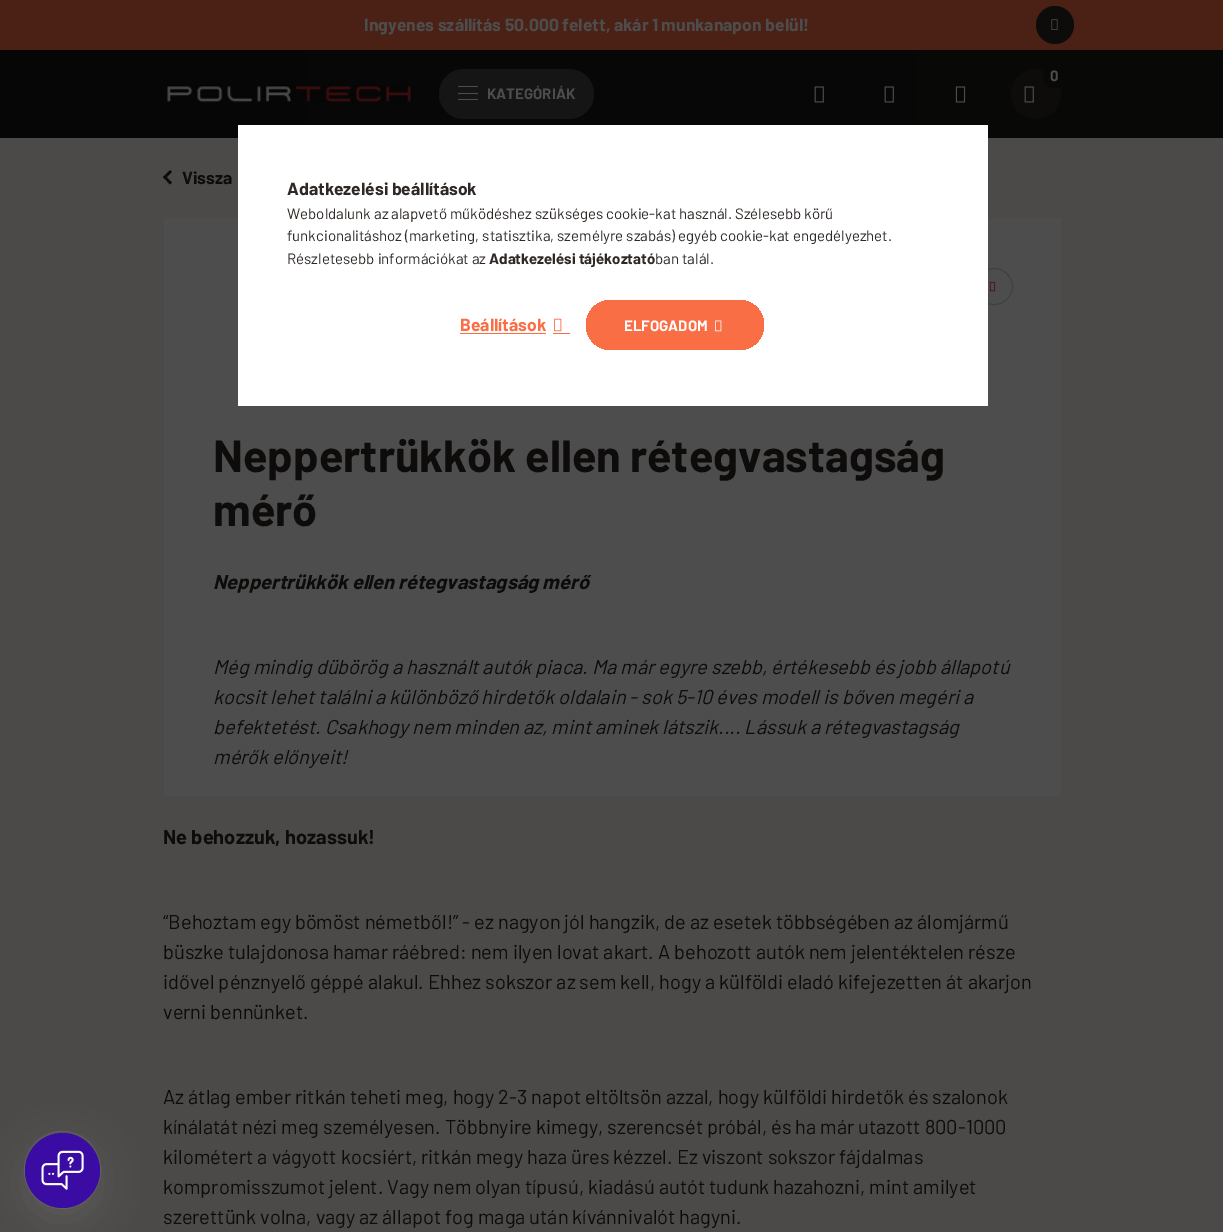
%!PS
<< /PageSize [1223 1232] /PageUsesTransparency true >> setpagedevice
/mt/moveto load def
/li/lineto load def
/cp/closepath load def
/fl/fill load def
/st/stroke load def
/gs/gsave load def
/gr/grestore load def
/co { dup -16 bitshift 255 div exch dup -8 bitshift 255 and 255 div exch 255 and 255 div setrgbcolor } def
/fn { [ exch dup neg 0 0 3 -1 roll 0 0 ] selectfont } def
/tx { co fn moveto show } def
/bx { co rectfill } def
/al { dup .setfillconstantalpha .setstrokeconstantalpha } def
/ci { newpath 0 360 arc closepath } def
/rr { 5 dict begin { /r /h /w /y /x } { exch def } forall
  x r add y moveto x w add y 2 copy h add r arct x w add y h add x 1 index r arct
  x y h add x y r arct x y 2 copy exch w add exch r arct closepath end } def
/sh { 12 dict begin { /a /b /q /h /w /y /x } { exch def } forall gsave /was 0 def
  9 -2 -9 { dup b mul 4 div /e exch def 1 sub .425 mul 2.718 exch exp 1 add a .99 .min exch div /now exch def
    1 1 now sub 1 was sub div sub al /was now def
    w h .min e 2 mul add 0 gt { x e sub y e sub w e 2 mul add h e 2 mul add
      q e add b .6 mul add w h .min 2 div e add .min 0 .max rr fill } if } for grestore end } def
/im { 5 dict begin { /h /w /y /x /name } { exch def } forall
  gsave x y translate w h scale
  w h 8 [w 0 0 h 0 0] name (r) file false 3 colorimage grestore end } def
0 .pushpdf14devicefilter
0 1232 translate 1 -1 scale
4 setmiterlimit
0 0 1223 1232 16#4B4A49 bx
0 0 1223 50 16#4B2115 bx
16#0E0C0B co
1055 25 19 ci fl
(media/1.raw) 1051 19 7 11 im
gs 0 50 mt 1223 50 li 1223 138 li 0 138 li cp clip newpath
<< /ShadingType 2 /ColorSpace /DeviceRGB /Coords [0 616 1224 616] /Extend [true true] /Function << /FunctionType 2 /Domain [0 1] /C0 [.027 .024 .027] /C1 [.031 .031 .027] /N 1 >> >> shfill gr
1036 94 25 ci fl
gs 1055.5 75.5 12.5 ci clip newpath
<< /ShadingType 2 /ColorSpace /DeviceRGB /Coords [0 616 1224 616] /Extend [true true] /Function << /FunctionType 2 /Domain [0 1] /C0 [.027 .024 .027] /C1 [.031 .031 .027] /N 1 >> >> shfill gr
(media/2.raw) 1024 86 10 17 im
(media/3.raw) 814 86 10 17 im
(media/3.raw) 884 86 10 17 im
(media/4.raw) 955 86 11 17 im
(media/5.raw) 166 85 247 18 im
16#151515 co
439 69 155 50 25 rr fl
458 86 20 1 16#4D4D4D bx
458 93 20 1 16#4D4D4D bx
458 99 20 1 16#4D4D4D bx
16#0E0C0B co
163 177 mt 170 170 li 172 172 li 165 179 li cp fl
165 175.5 mt 172 182.5 li 170 184.5 li 163 177 li cp fl
164 218 897 578 16#4D4D4D bx
16#404040 co
975.5 268.5 37 36 18 rr st
(media/6.raw) 989 282 7 10 im
238 125 750 281 16#FFFFFF bx
460 333 86 1 16#FA6E46 bx
(media/7.raw) 554 318 8 14 im
553 333 17 1 16#FA6E46 bx
gs 586 300 178 50 25 rr clip newpath
<< /ShadingType 2 /ColorSpace /DeviceRGB /Coords [586 325 1119 325] /Extend [true true] /Function << /FunctionType 3 /Domain [0 1] /Functions [<< /FunctionType 2 /Domain [0 1] /C0 [.98 .431 .275] /C1 [.98 .431 .275] /N 1 >> << /FunctionType 2 /Domain [0 1] /C0 [.98 .431 .275] /C1 [.969 .369 .196] /N 1 >> << /FunctionType 2 /Domain [0 1] /C0 [.969 .369 .196] /C1 [.969 .369 .196] /N 1 >>] /Bounds [.33 .67] /Encode [0 1 0 1 0 1] >> >> shfill gr
(media/8.raw) 715 320 7 12 im
16#5A5958 co
24.5 1131.5 76 77 38 rr st
16#969696 co
25 1145 75 75 37.5 19 .2 sh
16#3A0CA3 co
62.5 1170.5 37.5 ci fl
(media/9.raw) 41 1150 43 40 im
(Ingyenes szállítás 50.000 felett, akár 1 munkanapon belül!) 364 31 /Barlow-Bold 17.5 16#4D4D4D tx
(0) 1050 81 /Barlow-Bold 15 16#4D4D4D tx
(KATEGÓRIÁK) 487 99 /Barlow-Bold 15 16#4D4D4D tx
(Vissza) 182 184 /Barlow-Bold 17.5 16#0E0C0B tx
(Neppertrükkök ellen rétegvastagság) 213 472 /Barlow-Bold 45 16#0E0C0B tx
(mérő) 213 526 /Barlow-Bold 45 16#0E0C0B tx
(Neppertrükkök ellen rétegvastagság mérő) 213 589 /Barlow-BoldItalic 20 16#0E0C0B tx
(Még mindig dübörög a használt autók piaca. Ma már egyre szebb, értékesebb és jobb állapotú) 213 674 /Barlow-Italic 20 16#0E0C0B tx
(kocsit lehet találni a különböző hirdetők oldalain - sok 5-10 éves modell is bőven megéri a) 213 704 /Barlow-Italic 20 16#0E0C0B tx
(befektetést. Csakhogy nem minden az, mint aminek látszik.... Lássuk a rétegvastagság) 213 734 /Barlow-Italic 20 16#0E0C0B tx
(mérők előnyeit!) 213 764 /Barlow-Italic 20 16#0E0C0B tx
(Ne behozzuk, hozassuk!) 163 844 /Barlow-Bold 20 16#0E0C0B tx
(“Behoztam egy bömöst németből!” - ez nagyon jól hangzik, de az esetek többségében az álomjármű) 163 929 /Barlow-Regular 20 16#0E0C0B tx
(büszke tulajdonosa hamar ráébred: nem ilyen lovat akart. A behozott autók nem jelentéktelen része) 163 959 /Barlow-Regular 20 16#0E0C0B tx
(idővel pénznyelő géppé alakul. Ehhez sokszor az sem kell, hogy a külföldi eladó kifejezetten át akarjon) 163 989 /Barlow-Regular 20 16#0E0C0B tx
(verni bennünket.) 163 1019 /Barlow-Regular 20 16#0E0C0B tx
(Az átlag ember ritkán teheti meg, hogy 2-3 napot eltöltsön azzal, hogy külföldi hirdetők és szalonok) 163 1104 /Barlow-Regular 20 16#0E0C0B tx
(kínálatát nézi meg személyesen. Többnyire kimegy, szerencsét próbál, és ha már utazott 800-1000) 163 1134 /Barlow-Regular 20 16#0E0C0B tx
(kilométert a vágyott kocsiért, ritkán megy haza üres kézzel. Ez viszont sokszor fájdalmas) 163 1164 /Barlow-Regular 20 16#0E0C0B tx
(kompromisszumot jelent. Vagy nem olyan típusú, kiadású autót tudunk hazahozni, mint amilyet) 163 1194 /Barlow-Regular 20 16#0E0C0B tx
(szerettünk volna, vagy az állapot fog maga után kívánnivalót hagyni.) 163 1224 /Barlow-Regular 20 16#0E0C0B tx
(Adatkezelési beállítások) 287 195 /Barlow-Bold 17.5 16#2E2926 tx
(Weboldalunk az alapvető működéshez szükséges cookie-kat használ. Szélesebb körű) 287 219 /Barlow-Regular 15 16#2E2926 tx
(funkcionalitáshoz \(marketing, statisztika, személyre szabás\) egyéb cookie-kat engedélyezhet.) 287 241 /Barlow-Regular 15 16#2E2926 tx
(Részletesebb információkat az) 287 264 /Barlow-Regular 15 16#2E2926 tx
(Adatkezelési tájékoztató) 489 264 /Barlow-Bold 15 16#2E2926 tx
(ban talál.) 655 264 /Barlow-Regular 15 16#2E2926 tx
(Beállítások) 460 331 /Barlow-Bold 17.5 16#FA6E46 tx
(ELFOGADOM) 624 331 /Barlow-Bold 15 16#FFFFFF tx
.poppdf14devicefilter showpage
